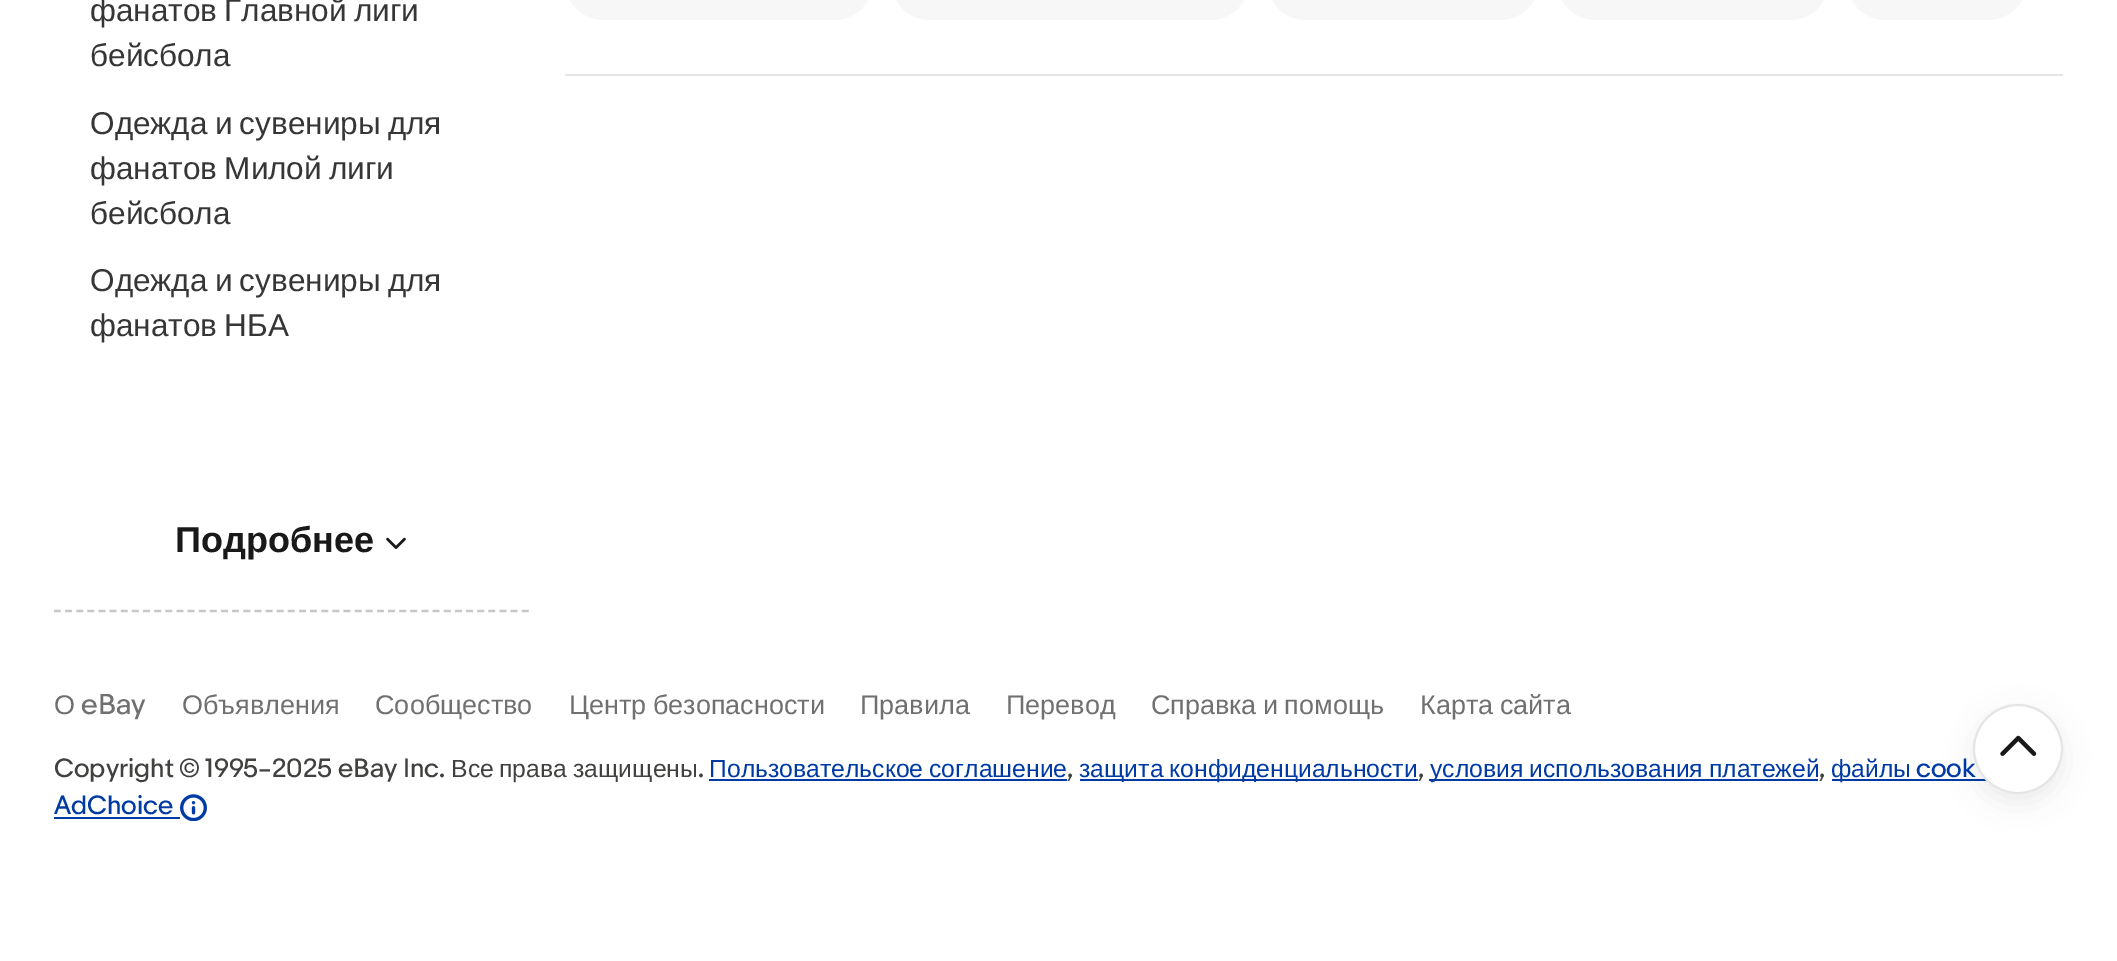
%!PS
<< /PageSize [2117 961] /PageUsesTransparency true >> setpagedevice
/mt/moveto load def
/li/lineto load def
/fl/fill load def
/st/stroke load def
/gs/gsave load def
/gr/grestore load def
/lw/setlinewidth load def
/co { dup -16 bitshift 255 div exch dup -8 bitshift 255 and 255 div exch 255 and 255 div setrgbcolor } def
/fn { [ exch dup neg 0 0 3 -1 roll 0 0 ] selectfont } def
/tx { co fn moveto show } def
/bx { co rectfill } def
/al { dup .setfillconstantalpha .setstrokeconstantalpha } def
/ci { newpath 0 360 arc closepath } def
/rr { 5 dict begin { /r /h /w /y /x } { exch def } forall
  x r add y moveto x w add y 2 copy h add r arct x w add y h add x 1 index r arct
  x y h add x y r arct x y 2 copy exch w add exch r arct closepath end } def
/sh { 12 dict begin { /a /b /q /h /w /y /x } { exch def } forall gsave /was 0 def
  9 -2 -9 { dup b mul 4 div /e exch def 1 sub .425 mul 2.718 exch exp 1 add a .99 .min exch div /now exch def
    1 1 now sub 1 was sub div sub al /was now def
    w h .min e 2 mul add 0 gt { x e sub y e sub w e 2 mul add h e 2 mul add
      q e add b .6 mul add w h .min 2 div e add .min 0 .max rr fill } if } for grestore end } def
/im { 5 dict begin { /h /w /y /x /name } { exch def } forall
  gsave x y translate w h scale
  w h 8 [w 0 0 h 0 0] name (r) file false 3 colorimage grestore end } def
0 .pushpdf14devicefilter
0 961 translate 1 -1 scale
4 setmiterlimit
0 0 2117 961 16#FFFFFF bx
16#C7C7C7 co
2.2 lw
[6.75 4.39] 0 setdash
54 611 mt 529 611 li st
(media/1.raw) 386 537 20 12 im
565 74 1498 2 16#E5E5E5 bx
16#F7F7F7 co
565 -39 308 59 39 rr fl
891 -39 358 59 39 rr fl
1267 -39 272 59 39 rr fl
1557 -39 272 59 39 rr fl
1847 -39 180 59 39 rr fl
709 779 358 2 16#003AA5 bx
1080 779 338 2 16#003AA5 bx
1429 779 389 2 16#003AA5 bx
1832 779 155 2 16#003AA5 bx
54 817 126 2 16#003AA5 bx
(media/2.raw) 180 794 27 27 im
16#000000 co
1973 713 90 90 45 13.5 .07 sh
/LiberationSans-Regular 31.5 fn
16#363636 co
90 21 mt -1.5 0 32 (фанатов Главной лиги) widthshow
(бейсбола) 90 66 /LiberationSans-Regular 31.5 16#363636 tx
90 134 mt -1.5 0 32 (Одежда и сувениры для) widthshow
90 179 mt -1.5 0 32 (фанатов Милой лиги) widthshow
(бейсбола) 90 224 /LiberationSans-Regular 31.5 16#363636 tx
90 291 mt -1.5 0 32 (Одежда и сувениры для) widthshow
90 336 mt -1.5 0 32 (фанатов НБА) widthshow
(Подробнее) 175 552 /LiberationSans-Bold 36 16#191919 tx
(О) 54 714 /LiberationSans-Regular 27 16#707070 tx
(eBay) 81 714 /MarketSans-Regular 27 16#707070 tx
(Объявления) 182 714 /LiberationSans-Regular 27 16#707070 tx
(Сообщество) 375 714 /LiberationSans-Regular 27 16#707070 tx
569 714 mt -1 0 32 (Центр безопасности) widthshow
(Правила) 860 714 /LiberationSans-Regular 27 16#707070 tx
(Перевод) 1006 714 /LiberationSans-Regular 27 16#707070 tx
1151 714 mt -1 0 32 (Справка и помощь) widthshow
1420 714 mt -1 0 32 (Карта сайта) widthshow
(Copyright © 1995–2025 eBay Inc.) 54 777 /MarketSans-Regular 24.75 16#41413F tx
(Все) 451 777 /LiberationSans-Regular 24.75 16#41413F tx
(права) 499 777 /LiberationSans-Regular 24.75 16#41413F tx
(защищены) 573 777 /LiberationSans-Regular 24.75 16#41413F tx
(.) 698 777 /MarketSans-Regular 24.75 16#41413F tx
/LiberationSans-Regular 24.75 fn
16#003AA5 co
709 777 mt -1 0 32 (Пользовательское соглашение) widthshow
(,) 1067 777 /MarketSans-Regular 24.75 16#41413F tx
/LiberationSans-Regular 24.75 fn
16#003AA5 co
1079 777 mt -1 0 32 (защита конфиденциальности) widthshow
(,) 1418 777 /MarketSans-Regular 24.75 16#41413F tx
/LiberationSans-Regular 24.75 fn
16#003AA5 co
1430 777 mt -1 0 32 (условия использования платежей) widthshow
(,) 1819 777 /MarketSans-Regular 24.75 16#41413F tx
(файлы) 1831 777 /LiberationSans-Regular 24.75 16#003AA5 tx
(cook) 1916 777 /MarketSans-Regular 24.75 16#003AA5 tx
(AdChoice) 54 814 /MarketSans-Regular 24.75 16#003AA5 tx
16#FFFFFF co
2018 749 44 ci gs fl gr
16#E5E5E5 co
2 lw
[] 0 setdash
st
(media/3.raw) 2000 735 37 21 im
.poppdf14devicefilter showpage
